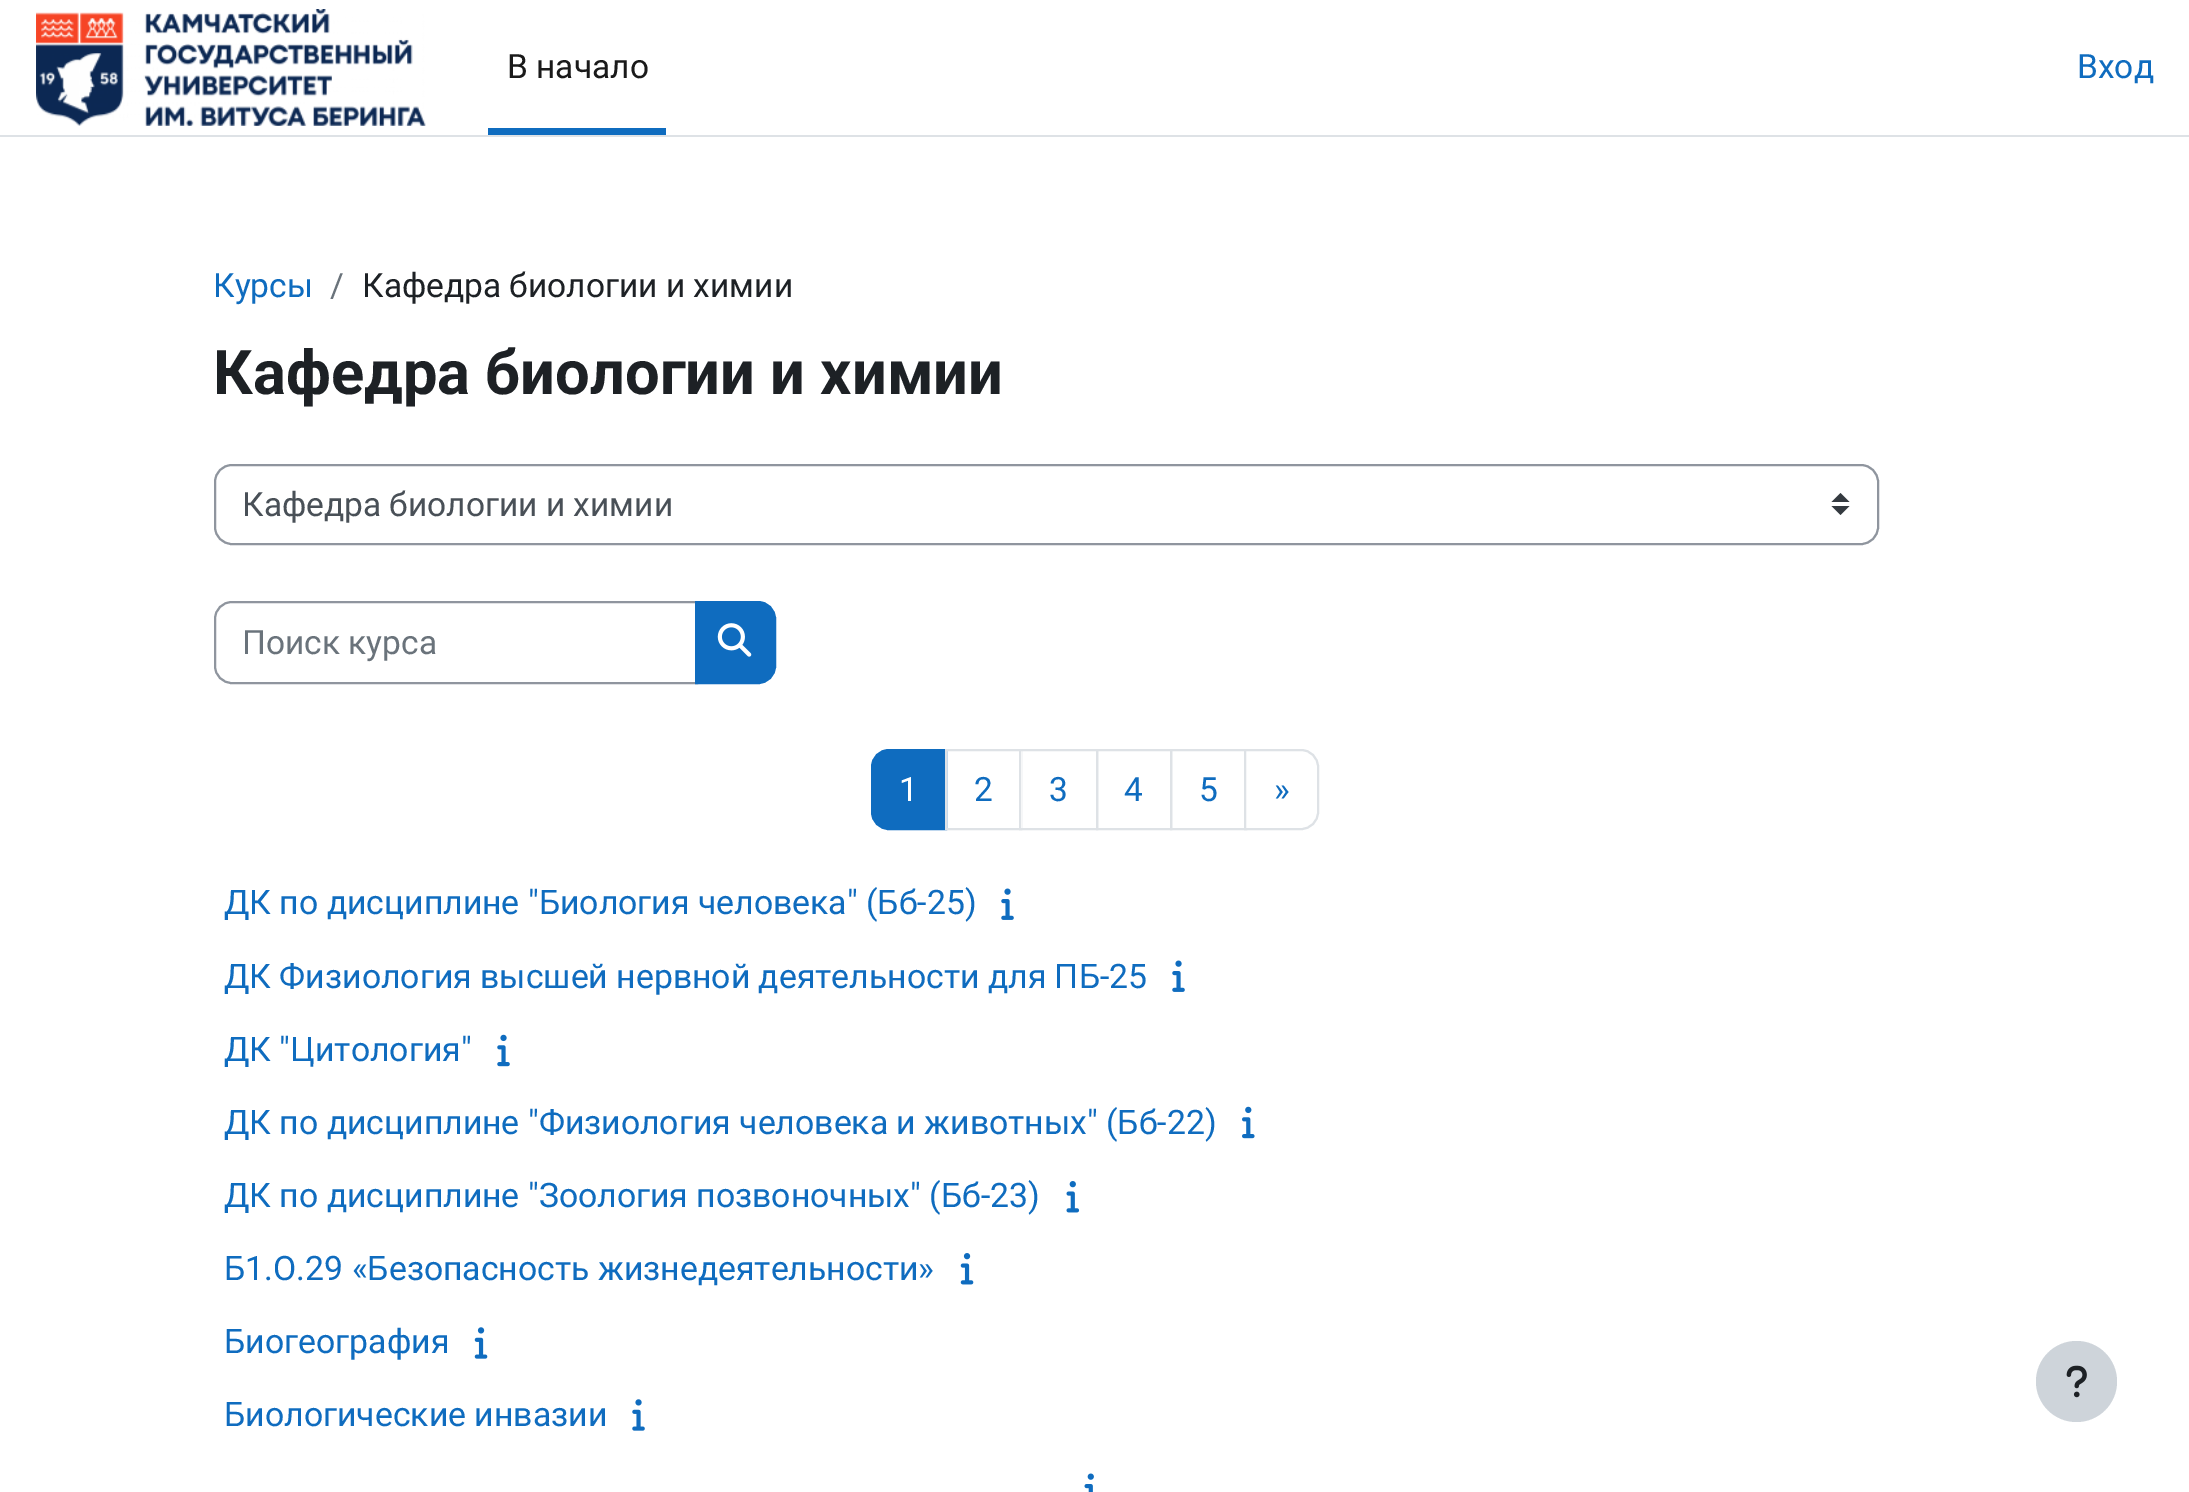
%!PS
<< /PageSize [2189 1492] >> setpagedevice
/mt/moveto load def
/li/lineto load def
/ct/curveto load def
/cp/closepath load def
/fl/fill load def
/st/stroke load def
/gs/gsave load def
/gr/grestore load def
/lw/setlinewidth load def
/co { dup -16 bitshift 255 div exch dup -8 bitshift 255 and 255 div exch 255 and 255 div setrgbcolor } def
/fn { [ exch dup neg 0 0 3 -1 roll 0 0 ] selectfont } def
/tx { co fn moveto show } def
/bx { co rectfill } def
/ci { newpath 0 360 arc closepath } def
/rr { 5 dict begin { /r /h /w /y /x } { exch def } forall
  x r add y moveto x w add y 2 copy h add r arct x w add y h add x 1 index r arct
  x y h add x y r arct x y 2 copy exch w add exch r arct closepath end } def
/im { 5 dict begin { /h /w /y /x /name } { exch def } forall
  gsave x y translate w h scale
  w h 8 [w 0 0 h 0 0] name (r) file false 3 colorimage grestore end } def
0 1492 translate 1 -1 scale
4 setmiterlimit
0 0 2189 1492 16#FFFFFF bx
0 135 2189 2 16#DEE2E6 bx
(media/1.raw) 36 9 390 117 im
488 128 178 7 16#0F6CBF bx
16#343A40 co
1840.5 493 mt 1831.5 502 li 1849.5 502 li cp 1840.5 515 mt 1831.5 506 li 1849.5 506 li cp fl
16#8F959E co
2 lw
215 465 1663 79 17 rr st
232 602 mt 697 602 li 697 683 li 232 683 li 222.5 683 215 675.5 215 666 ct 215 619 li 215 609.5 222.5 602 232 602 ct cp st
16#0F6CBF co
696 602 mt 758 602 li 767.5 602 775 609.5 775 619 ct 775 666 li 775 675.5 767.5 683 758 683 ct 696 683 li cp gs fl gr
st
(media/2.raw) 717 623 35 34 im
889 750 mt 946 750 li 946 829 li 889 829 li 879.5 829 872 821.5 872 812 ct 872 767 li 872 757.5 879.5 750 889 750 ct cp gs fl gr
st
16#DEE2E6 co
946 750 75 79 rectstroke
1021 751 1 77 16#FFFFFF bx
16#DEE2E6 co
1020 750 77 79 rectstroke
1097 750 74 79 rectstroke
1171 750 75 79 rectstroke
16#FFFFFF co
1245 750 mt 1301 750 li 1310.5 750 1318 757.5 1318 767 ct 1318 812 li 1318 821.5 1310.5 829 1301 829 ct 1245 829 li cp gs fl gr
16#DEE2E6 co
st
(media/3.raw) 1001 888 13 32 im
(media/3.raw) 1172 960 13 32 im
(media/4.raw) 497 1034 13 33 im
(media/5.raw) 1242 1106 13 33 im
(media/6.raw) 1066 1181 14 32 im
(media/7.raw) 960 1253 14 32 im
(media/8.raw) 474 1327 14 32 im
(media/9.raw) 632 1399 13 32 im
(media/10.raw) 1084 1473 10 19 im
16#CED4DA co
2076.5 1381.5 40.5 ci fl
(media/11.raw) 2066 1365 21 33 im
(В начало) 507 78 /Roboto-Regular 33.5 16#1A1A1A tx
(Вход) 2077 78 /Roboto-Regular 33.5 16#0F6CBF tx
(Курсы) 213 297 /Roboto-Regular 33.5 16#0F6CBF tx
(/) 330 297 /Roboto-Regular 33.5 16#6A737B tx
(Кафедра биологии и химии) 362 297 /Roboto-Regular 33.5 16#1D2125 tx
(Кафедра биологии и химии) 213 394 /Roboto-Bold 61.5 16#1D2125 tx
(Кафедра биологии и химии) 242 516 /Roboto-Regular 33.5 16#495057 tx
(Поиск курса) 242 654 /Roboto-Regular 33.5 16#6A737B tx
(1) 899 801 /Roboto-Regular 33.5 16#FFFFFF tx
(2) 974 801 /Roboto-Regular 33.5 16#0F6CBF tx
(3) 1049 801 /Roboto-Regular 33.5 16#0F6CBF tx
(4) 1124 801 /Roboto-Regular 33.5 16#0F6CBF tx
(5) 1199 801 /Roboto-Regular 33.5 16#0F6CBF tx
(») 1274 801 /Roboto-Regular 33.5 16#0F6CBF tx
(ДК по дисциплине "Биология человека" \(Бб-25\)) 224 914 /Roboto-Regular 33.75 16#0F6CBF tx
(ДК Физиология высшей нервной деятельности для ПБ-25) 224 988 /Roboto-Regular 33.75 16#0F6CBF tx
(ДК "Цитология") 224 1061 /Roboto-Regular 33.75 16#0F6CBF tx
(ДК по дисциплине "Физиология человека и животных" \(Бб-22\)) 224 1134 /Roboto-Regular 33.75 16#0F6CBF tx
(ДК по дисциплине "Зоология позвоночных" \(Бб-23\)) 224 1207 /Roboto-Regular 33.75 16#0F6CBF tx
(Б1.О.29 «Безопасность жизнедеятельности») 224 1280 /Roboto-Regular 33.75 16#0F6CBF tx
(Биогеография) 224 1353 /Roboto-Regular 33.75 16#0F6CBF tx
(Биологические инвазии) 224 1426 /Roboto-Regular 33.75 16#0F6CBF tx
showpage
